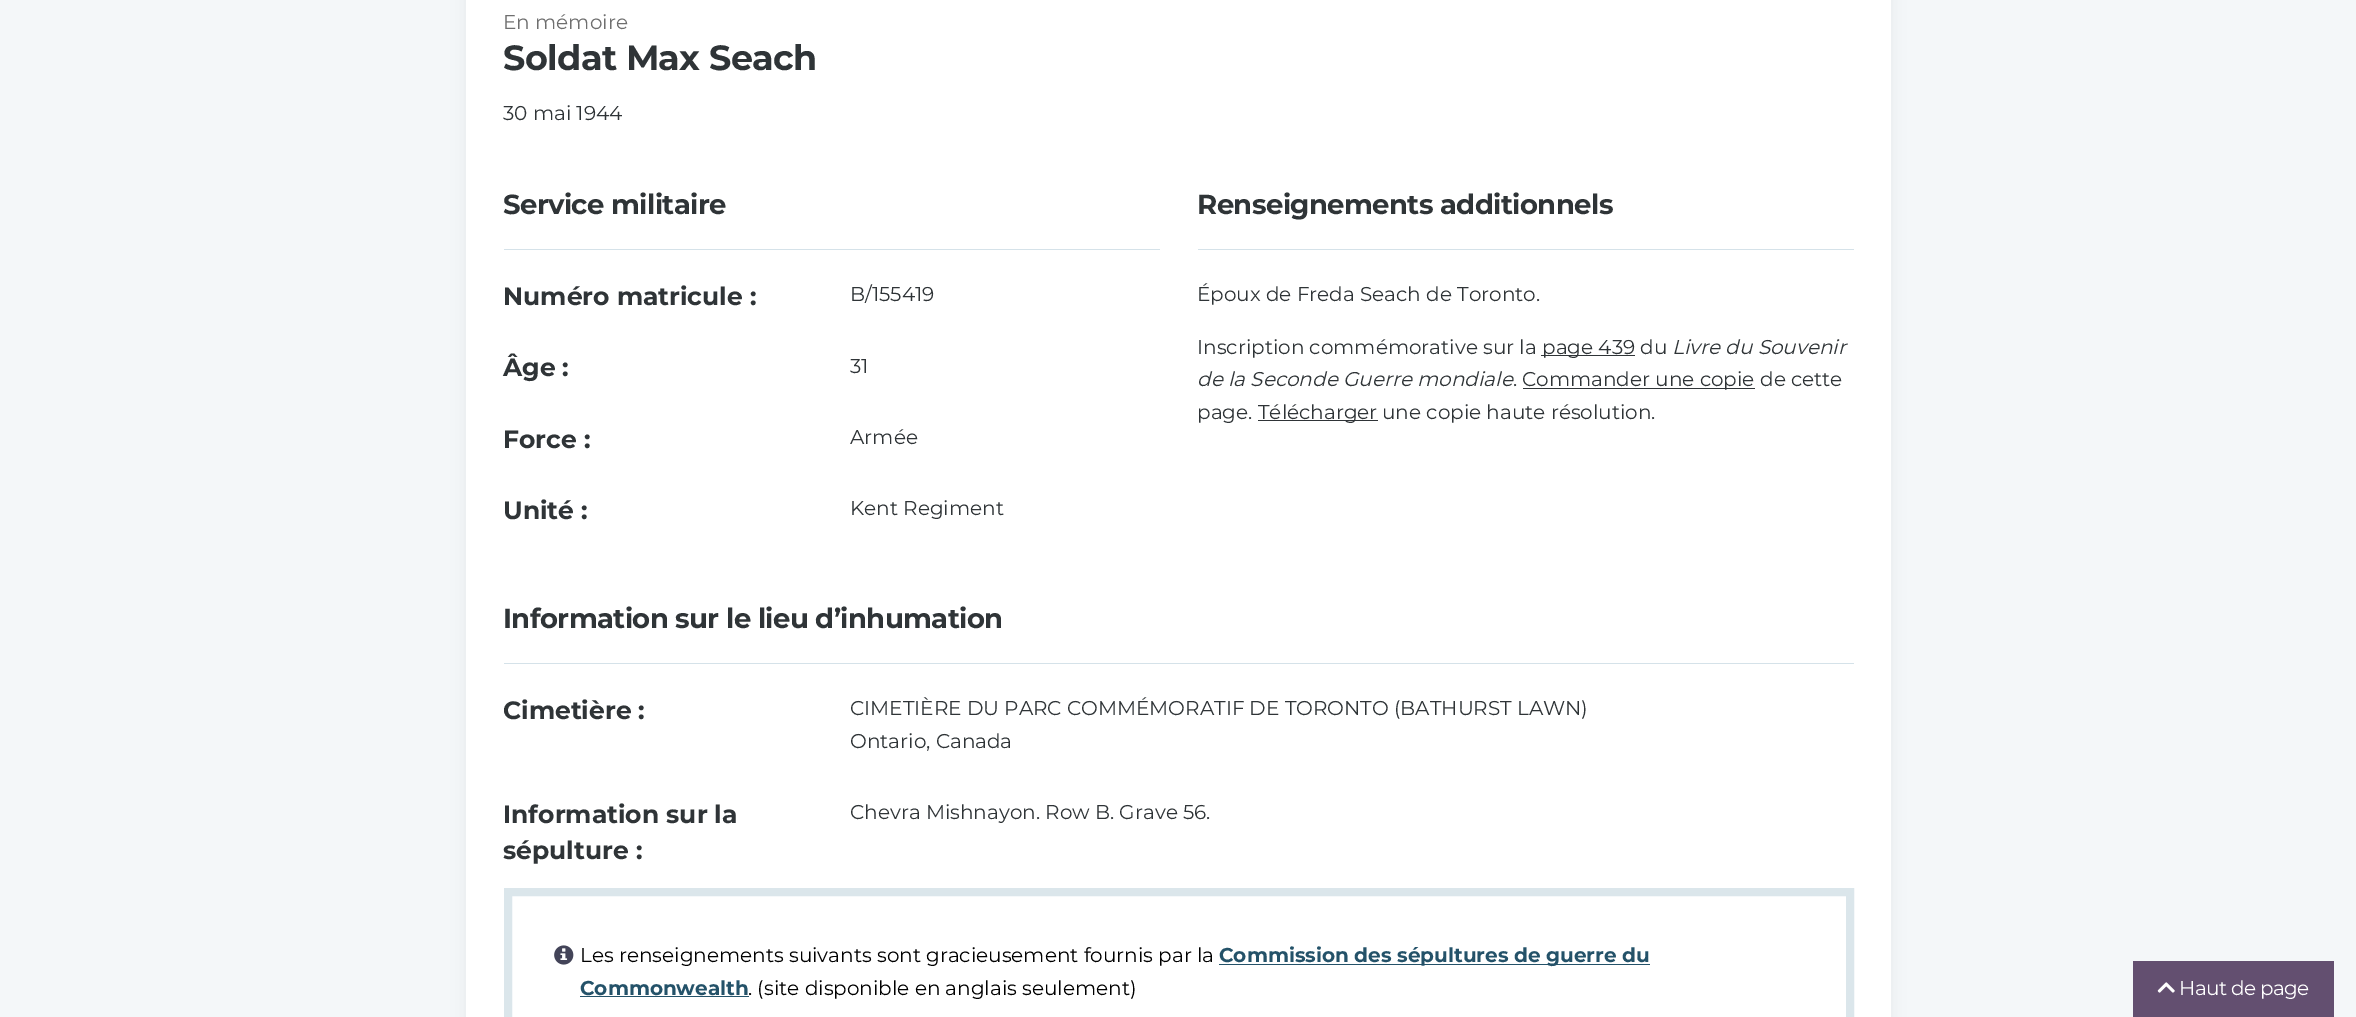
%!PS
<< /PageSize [2356 1017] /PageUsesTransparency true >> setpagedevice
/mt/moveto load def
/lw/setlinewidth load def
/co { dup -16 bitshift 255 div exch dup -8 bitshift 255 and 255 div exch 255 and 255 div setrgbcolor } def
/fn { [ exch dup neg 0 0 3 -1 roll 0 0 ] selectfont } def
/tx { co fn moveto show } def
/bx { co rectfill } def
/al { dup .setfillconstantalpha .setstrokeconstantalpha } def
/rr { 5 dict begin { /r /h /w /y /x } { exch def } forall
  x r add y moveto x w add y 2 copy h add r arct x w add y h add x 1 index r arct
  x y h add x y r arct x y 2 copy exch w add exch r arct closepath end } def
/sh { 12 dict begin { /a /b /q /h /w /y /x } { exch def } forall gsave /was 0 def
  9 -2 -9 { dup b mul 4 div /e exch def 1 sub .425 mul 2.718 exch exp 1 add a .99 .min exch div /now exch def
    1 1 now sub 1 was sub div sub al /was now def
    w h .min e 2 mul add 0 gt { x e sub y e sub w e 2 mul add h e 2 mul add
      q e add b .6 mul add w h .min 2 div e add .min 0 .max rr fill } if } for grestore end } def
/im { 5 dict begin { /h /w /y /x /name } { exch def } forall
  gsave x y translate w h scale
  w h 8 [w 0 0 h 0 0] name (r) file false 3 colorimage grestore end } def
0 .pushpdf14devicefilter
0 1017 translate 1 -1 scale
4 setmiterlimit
0 0 2356 1017 16#F4F7F9 bx
16#000000 co
466 -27 1425 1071 0 9 .05 sh
466 0 1425 1017 16#FFFFFF bx
504 249 656 1 16#D5E2E9 bx
1198 249 656 1 16#D5E2E9 bx
1541 355 94 1 16#2F3437 bx
1523 388 232 1 16#2F3437 bx
1258 420 120 1 16#2F3437 bx
504 663 1350 1 16#D5E2E9 bx
16#DBE6EB co
8 lw
508 892 1342 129 rectstroke
(media/1.raw) 554 945 20 20 im
1219 964 431 1 16#245269 bx
580 996 169 1 16#245269 bx
2133 961 201 56 16#634F70 bx
(media/2.raw) 2157 982 18 11 im
(En mémoire) 503 29 /Montserrat-Regular 20 16#6F6F6F tx
/Montserrat-Bold 35 fn
16#2F3437 co
503 70 mt -.6 0 (Soldat Max Seach) ashow
(30 mai 1944) 503 120 /Montserrat-Regular 20 16#2F3437 tx
/Montserrat-Bold 27.5 fn
503 214 mt -.6 0 (Service militaire) ashow
(Numéro matricule :) 503 305 /Montserrat-Bold 25 16#2F3437 tx
(B/155419) 850 301 /Montserrat-Regular 20 16#2F3437 tx
(Âge :) 503 376 /Montserrat-Bold 25 16#2F3437 tx
(31) 850 373 /Montserrat-Regular 20 16#2F3437 tx
(Force :) 503 448 /Montserrat-Bold 25 16#2F3437 tx
(Armée) 850 444 /Montserrat-Regular 20 16#2F3437 tx
(Unité :) 503 519 /Montserrat-Bold 25 16#2F3437 tx
(Kent Regiment) 850 515 /Montserrat-Regular 20 16#2F3437 tx
/Montserrat-Bold 27.5 fn
1197 214 mt -.6 0 (Renseignements additionnels) ashow
(Époux de Freda Seach de Toronto.) 1197 301 /Montserrat-Regular 20 16#2F3437 tx
(Inscription commémorative sur la) 1197 354 /Montserrat-Regular 20 16#2F3437 tx
(page 439) 1542 354 /Montserrat-Regular 20 16#2F3437 tx
(du) 1640 354 /Montserrat-Regular 20 16#2F3437 tx
(Livre du Souvenir) 1672 354 /Montserrat-Italic 20 16#2F3437 tx
(de la Seconde Guerre mondiale) 1197 386 /Montserrat-Italic 20 16#2F3437 tx
(.) 1513 386 /Montserrat-Regular 20 16#2F3437 tx
(Commander une copie) 1522 386 /Montserrat-Regular 20 16#2F3437 tx
(de cette) 1760 386 /Montserrat-Regular 20 16#2F3437 tx
(page.) 1197 419 /Montserrat-Regular 20 16#2F3437 tx
(Télécharger) 1258 419 /Montserrat-Regular 20 16#2F3437 tx
(une copie haute résolution.) 1382 419 /Montserrat-Regular 20 16#2F3437 tx
/Montserrat-Bold 27.5 fn
503 628 mt -.6 0 (Information sur le lieu d’inhumation) ashow
(Cimetière :) 503 719 /Montserrat-Bold 25 16#2F3437 tx
(CIMETIÈRE DU PARC COMMÉMORATIF DE TORONTO \(BATHURST LAWN\)) 850 715 /Montserrat-Regular 20 16#2F3437 tx
(Ontario, Canada) 850 748 /Montserrat-Regular 20 16#2F3437 tx
(Information sur la) 503 823 /Montserrat-Bold 25 16#2F3437 tx
(sépulture :) 503 859 /Montserrat-Bold 25 16#2F3437 tx
(Chevra Mishnayon. Row B. Grave 56.) 850 819 /Montserrat-Regular 20 16#2F3437 tx
(Les renseignements suivants sont gracieusement fournis par la) 580 962 /Montserrat-Regular 20 16#000000 tx
(Commission des sépultures de guerre du) 1219 962 /Montserrat-Bold 20 16#245269 tx
(Commonwealth) 580 995 /Montserrat-Bold 20 16#245269 tx
(. \(site disponible en anglais seulement\)) 748 995 /Montserrat-Regular 20 16#000000 tx
16#FFFFFF co
2179 995 mt -.6 0 (Haut de page) ashow
.poppdf14devicefilter showpage
